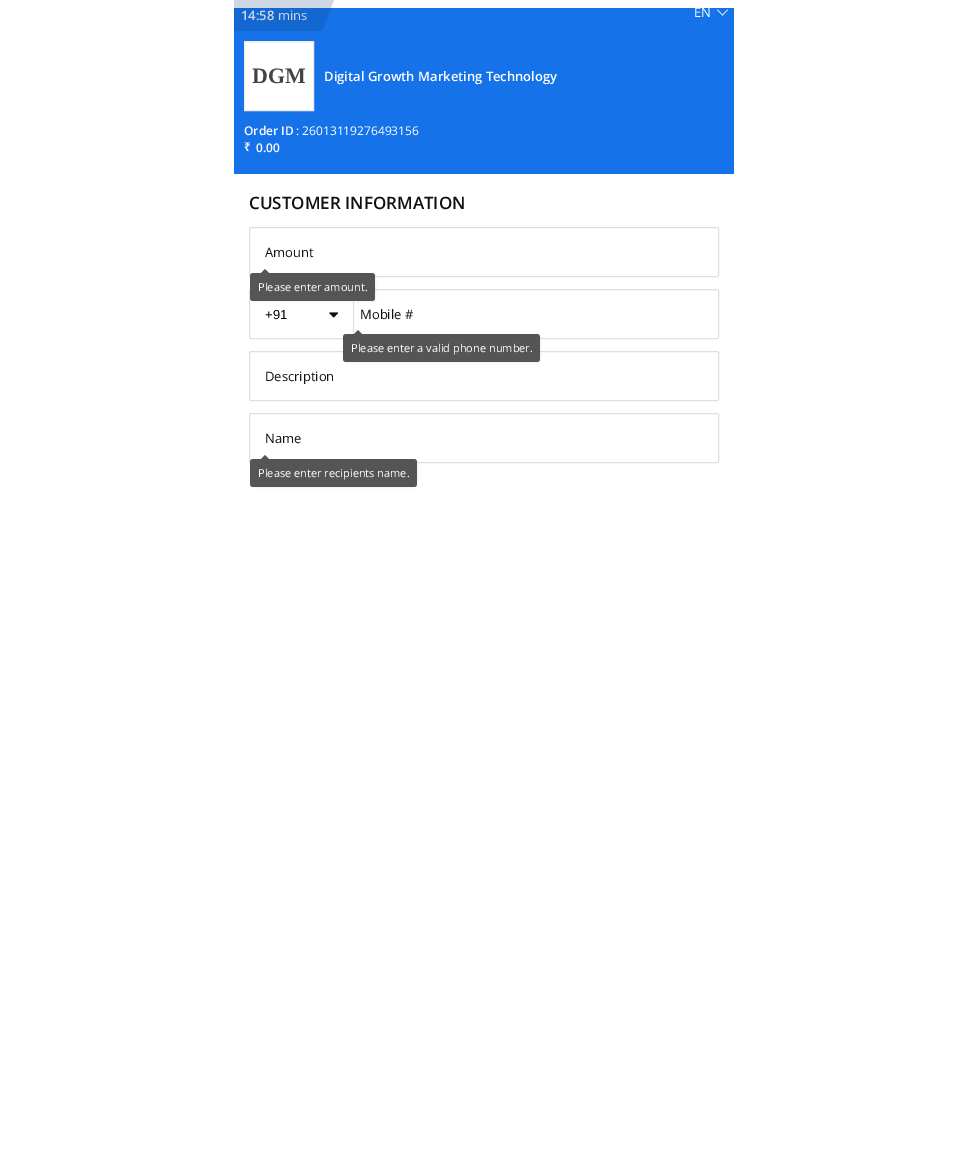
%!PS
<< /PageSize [967 1168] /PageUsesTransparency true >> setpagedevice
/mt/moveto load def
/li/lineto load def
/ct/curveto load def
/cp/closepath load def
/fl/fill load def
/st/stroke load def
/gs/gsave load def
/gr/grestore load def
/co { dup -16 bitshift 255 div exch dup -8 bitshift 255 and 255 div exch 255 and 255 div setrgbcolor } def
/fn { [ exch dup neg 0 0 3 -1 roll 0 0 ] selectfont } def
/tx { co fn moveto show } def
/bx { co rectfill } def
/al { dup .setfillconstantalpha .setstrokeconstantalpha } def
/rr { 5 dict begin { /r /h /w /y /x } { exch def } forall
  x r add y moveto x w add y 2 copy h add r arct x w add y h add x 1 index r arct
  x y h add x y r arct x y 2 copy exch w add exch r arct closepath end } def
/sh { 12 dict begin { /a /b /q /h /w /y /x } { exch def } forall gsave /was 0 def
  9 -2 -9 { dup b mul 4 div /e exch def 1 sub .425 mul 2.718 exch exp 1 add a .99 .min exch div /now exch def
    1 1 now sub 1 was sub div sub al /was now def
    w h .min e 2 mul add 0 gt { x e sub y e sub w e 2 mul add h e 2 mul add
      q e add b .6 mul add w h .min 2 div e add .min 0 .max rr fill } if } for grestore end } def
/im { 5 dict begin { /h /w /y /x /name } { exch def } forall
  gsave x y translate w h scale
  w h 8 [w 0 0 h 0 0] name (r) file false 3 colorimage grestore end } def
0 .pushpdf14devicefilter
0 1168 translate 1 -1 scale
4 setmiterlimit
0 0 967 1168 16#FFFFFF bx
234 8 500 166 16#1572E8 bx
16#FFFFFF co
727.5 9.5 mt 728 10 li 722.5 15.5 li 722 15 li cp fl
717.5 9.5 mt 723 15 li 722.5 15.5 li 717 10 li cp fl
244.5 41.5 mt 313.5 41.5 li 313.5 110.5 li 244.5 110.5 li cp gs fl gr
16#ECECEC co
st
16#DCDFE4 co
249.5 227.5 469 49 1.5 rr st
249.5 289.5 469 49 1.5 rr st
353 301 1 37 16#DCDFE4 bx
16#000000 co
251 274 125 28 3 1 .05 sh
16#555555 co
250 273 125 28 3 rr fl
270 274 mt 260 274 li 265 269 li cp fl
(media/1.raw) 329 312 10 6 im
16#DCDFE4 co
249.5 351.5 469 49 1.5 rr st
16#000000 co
344 335 197 28 3 1 .05 sh
16#555555 co
343 334 197 28 3 rr fl
363 335 mt 353 335 li 358 330 li cp fl
16#DCDFE4 co
249.5 413.5 469 49 1.5 rr st
16#000000 co
251 460 167 28 3 1 .05 sh
16#555555 co
250 459 167 28 3 rr fl
270 460 mt 260 460 li 265 455 li cp fl
(14:58) 241 20 /OpenSans-SemiBold 13 16#FFFFFF tx
(mins) 278 20 /OpenSans-Regular 13 16#FFFFFF tx
gs
234 0 500 1168 rectclip
0.2 al
16#0B3974 co
224 0 mt 218 0 214 4 214 10 ct 214 21 li 214 27 218 31 224 31 ct 322 31 li 334 0 li cp fl
gr
(EN) 694 17 /OpenSans-Regular 13 16#FFFFFF tx
(DGM) 252 83 /LiberationSerif-Bold 22 16#434343 tx
(Digital Growth Marketing Technology) 324 81 /OpenSans-SemiBold 13 16#FFFFFF tx
(Order ID) 244 135 /OpenSans-SemiBold 12 16#FFFFFF tx
(: 26013119276493156) 296 135 /OpenSans-Regular 12 16#FFFFFF tx
(₹) 244 151 /NotoSans-SemiBold 12 16#FFFFFF tx
(0.00) 256 152 /OpenSans-SemiBold 12 16#FFFFFF tx
(CUSTOMER INFORMATION) 249 209 /OpenSans-SemiBold 17 16#101010 tx
(Amount) 265 257 /OpenSans-Regular 13 16#101010 tx
(Please enter amount.) 258 291 /OpenSans-Regular 11 16#FFFFFF tx
(+91) 265 319 /LiberationSans-Regular 13 16#000000 tx
(Mobile #) 360 319 /OpenSans-Regular 13 16#101010 tx
(Please enter a valid phone number.) 351 352 /OpenSans-Regular 11 16#FFFFFF tx
(Description) 265 381 /OpenSans-Regular 13 16#101010 tx
(Name) 265 443 /OpenSans-Regular 13 16#101010 tx
(Please enter recipients name.) 258 477 /OpenSans-Regular 11 16#FFFFFF tx
.poppdf14devicefilter showpage
